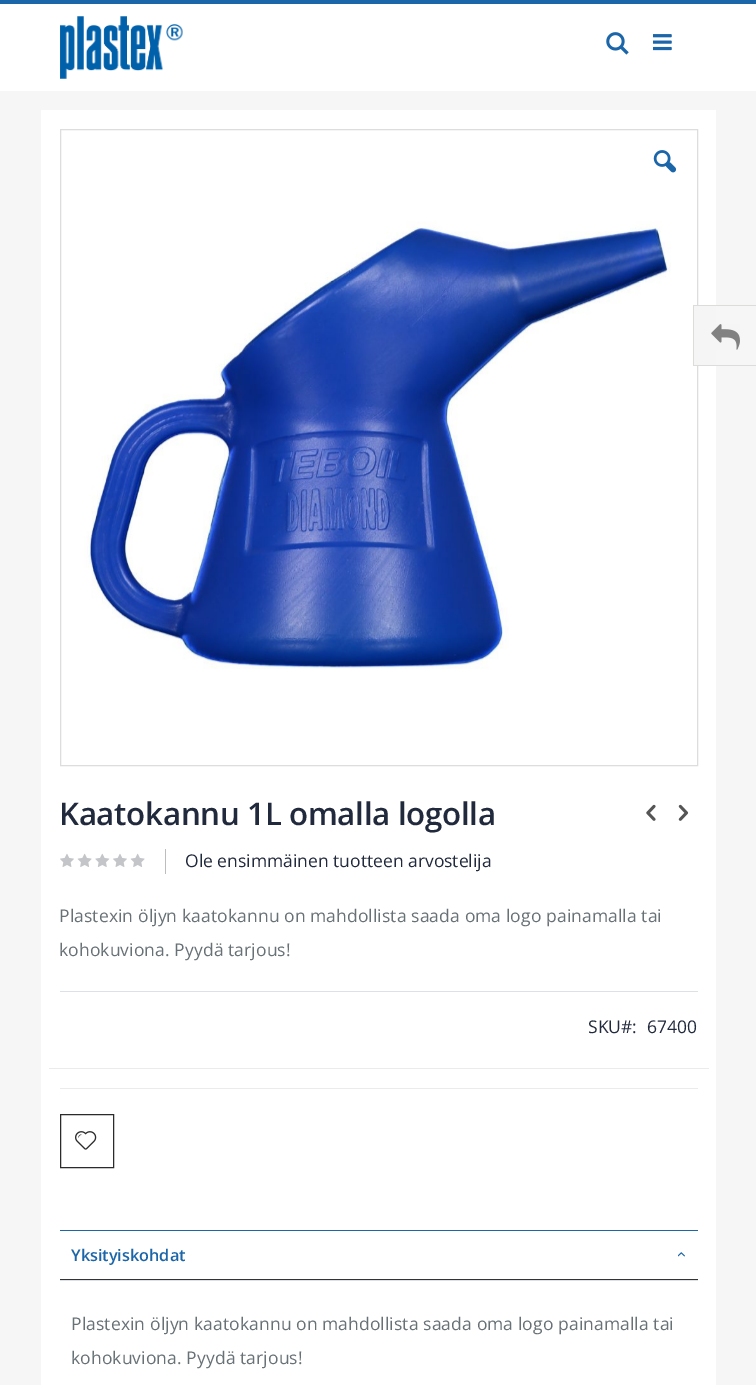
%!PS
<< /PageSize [756 1385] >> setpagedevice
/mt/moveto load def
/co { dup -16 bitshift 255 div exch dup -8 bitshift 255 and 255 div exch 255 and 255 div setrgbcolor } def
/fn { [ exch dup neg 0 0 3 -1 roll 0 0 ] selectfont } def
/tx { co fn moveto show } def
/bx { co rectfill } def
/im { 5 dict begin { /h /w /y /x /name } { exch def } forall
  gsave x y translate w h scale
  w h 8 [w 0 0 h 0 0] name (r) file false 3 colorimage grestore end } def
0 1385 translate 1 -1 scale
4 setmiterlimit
0 0 756 1385 16#F6F6F6 bx
0 4 756 87 16#FFFFFF bx
0 0 756 4 16#1B65A9 bx
(media/1.raw) 60 16 123 63 im
(media/2.raw) 606 32 23 23 im
(media/3.raw) 653 34 19 17 im
41 110 675 1275 16#FFFFFF bx
16#DDDDDD co
60.5 129.5 637 636 rectstroke
694 306 22 59 16#F5F5F5 bx
693 305 63 1 16#DCDCDA bx
693 365 63 1 16#DCDCDA bx
693 305 1 61 16#DCDCDA bx
(media/4.raw) 711 324 29 26 im
(media/5.raw) 653 150 24 23 im
(media/6.raw) 84 221 587 448 im
(media/7.raw) 646 804 10 17 im
(media/8.raw) 678 804 11 17 im
(media/9.raw) 60 853 85 14 im
165 849 1 25 16#BDBDBD bx
60 991 638 1 16#DAE2E6 bx
49 1068 660 1 16#EBEBEB bx
60 1088 638 1 16#EBEBEB bx
16#2B2B2D co
60.5 1114.5 53 53 rectstroke
(media/10.raw) 75 1131 22 19 im
60 1230 638 1 16#1B65A9 bx
60 1279 638 1 16#333333 bx
(media/11.raw) 678 1252 7 5 im
60 1280 638 1 16#DAE2E6 bx
/OpenSans-SemiBold 31.25 fn
16#21293C co
59 825 mt -.3 0 (Kaatokannu 1L omalla logolla) ashow
(Ole ensimmäinen tuotteen arvostelija) 185 867 /OpenSans-Regular 17.5 16#21293C tx
16#687176 co
59 922 mt .1 0 (Plastexin öljyn kaatokannu on mahdollista saada oma logo painamalla tai) ashow
59 956 mt .1 0 (kohokuviona. Pyydä tarjous!) ashow
(SKU#:) 588 1033 /OpenSans-Regular 17.5 16#21293C tx
(67400) 647 1033 /OpenSans-Regular 17.5 16#21293C tx
(Yksityiskohdat) 71 1261 /OpenSans-SemiBold 16.25 16#1B65A9 tx
/OpenSans-Regular 17.5 fn
16#687176 co
71 1330 mt .1 0 (Plastexin öljyn kaatokannu on mahdollista saada oma logo painamalla tai) ashow
71 1364 mt .1 0 (kohokuviona. Pyydä tarjous!) ashow
showpage
